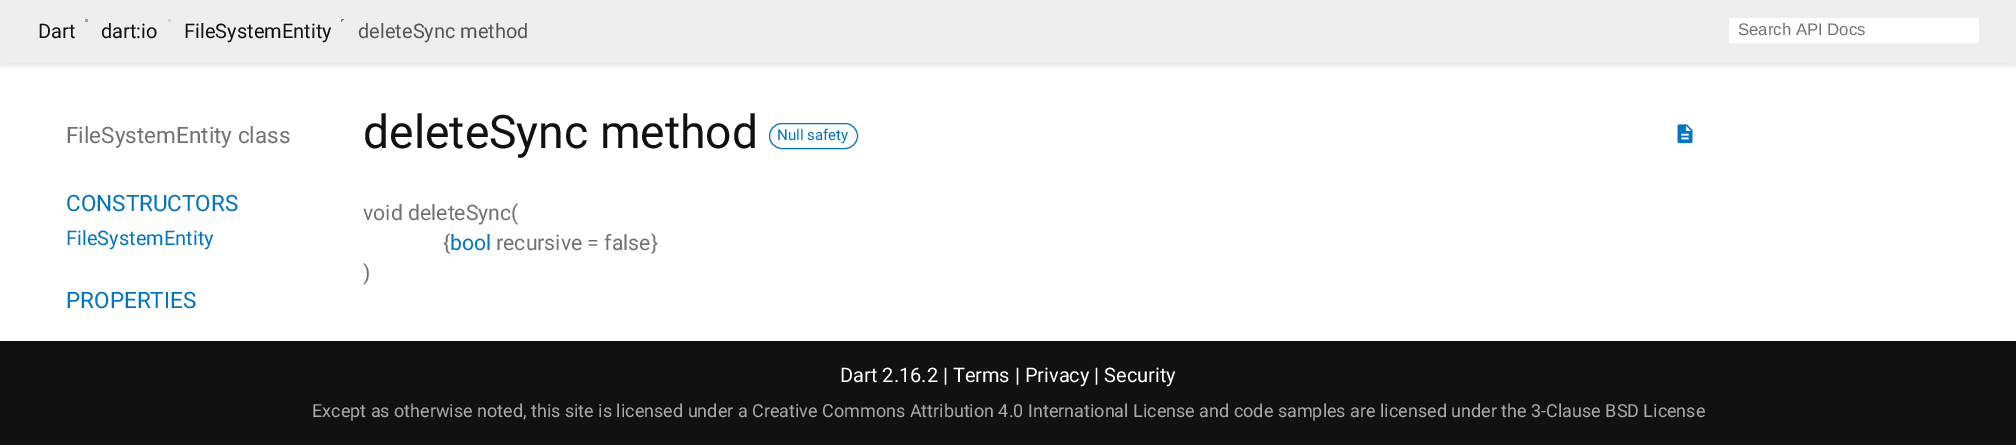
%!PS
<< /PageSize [2016 445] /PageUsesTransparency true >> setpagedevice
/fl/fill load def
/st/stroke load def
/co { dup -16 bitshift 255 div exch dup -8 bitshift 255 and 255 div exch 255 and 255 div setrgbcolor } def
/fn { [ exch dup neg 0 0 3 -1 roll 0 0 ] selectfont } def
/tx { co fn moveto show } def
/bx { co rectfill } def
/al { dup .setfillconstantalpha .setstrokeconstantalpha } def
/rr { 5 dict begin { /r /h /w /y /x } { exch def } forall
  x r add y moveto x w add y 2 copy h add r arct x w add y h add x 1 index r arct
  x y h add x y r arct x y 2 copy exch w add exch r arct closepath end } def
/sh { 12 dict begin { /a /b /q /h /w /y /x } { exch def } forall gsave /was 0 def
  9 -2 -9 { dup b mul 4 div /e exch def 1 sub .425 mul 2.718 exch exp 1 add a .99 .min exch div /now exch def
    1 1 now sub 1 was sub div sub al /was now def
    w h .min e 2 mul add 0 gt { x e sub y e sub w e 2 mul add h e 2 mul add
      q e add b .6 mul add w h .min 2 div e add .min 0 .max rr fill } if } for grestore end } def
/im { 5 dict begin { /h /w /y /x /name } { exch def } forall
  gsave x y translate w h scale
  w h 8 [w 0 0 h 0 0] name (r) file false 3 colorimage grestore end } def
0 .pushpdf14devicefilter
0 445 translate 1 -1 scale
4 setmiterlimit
0 0 2016 445 16#FFFFFF bx
16#000000 co
0 4 2016 62 0 3 .1 sh
0 0 2016 63 16#EEEEEE bx
85 19 3 3 16#A1A1A1 bx
168 19 3 3 16#D4D4D4 bx
(media/1.raw) 341 19 4 4 im
16#FFFFFF co
1729 18 250 25 2.5 rr fl
16#0175C2 co
769.5 123.5 88 25 12.5 rr st
(media/2.raw) 1677 124 16 20 im
0 341 2016 104 16#111111 bx
(Dart) 38 38 /Roboto-Regular 20 16#111111 tx
(dart:io) 101 38 /Roboto-Regular 20 16#111111 tx
(FileSystemEntity) 184 38 /Roboto-Regular 20 16#111111 tx
(deleteSync method) 358 38 /Roboto-Regular 20 16#555555 tx
(Search API Docs) 1738 35 /LiberationSans-Regular 16.75 16#727272 tx
(FileSystemEntity class) 66 143 /Roboto-Regular 22.5 16#727272 tx
(CONSTRUCTORS) 66 211 /Roboto-Regular 22.5 16#0175C2 tx
(FileSystemEntity) 66 245 /Roboto-Regular 20 16#0175C2 tx
(PROPERTIES) 66 308 /Roboto-Regular 22.5 16#0175C2 tx
(deleteSync method) 363 148 /Roboto-Regular 46.25 16#111111 tx
(Null safety) 777 140 /Roboto-Regular 15 16#0175C2 tx
(void deleteSync\() 363 220 /Roboto-Regular 21.25 16#727272 tx
({) 443 250 /Roboto-Regular 21.25 16#727272 tx
(bool) 450 250 /Roboto-Regular 21.25 16#0175C2 tx
(recursive = false}) 496 250 /Roboto-Regular 21.25 16#727272 tx
(\)) 363 280 /Roboto-Regular 21.25 16#727272 tx
(Dart 2.16.2 | Terms | Privacy | Security) 840 382 /Roboto-Regular 20 16#FFFFFF tx
(Except as otherwise noted, this site is licensed under a Creative Commons Attribution 4.0 International License and code samples are licensed under the 3-Clause BSD License) 312 417 /Roboto-Regular 18 16#A9A9A9 tx
.poppdf14devicefilter showpage
